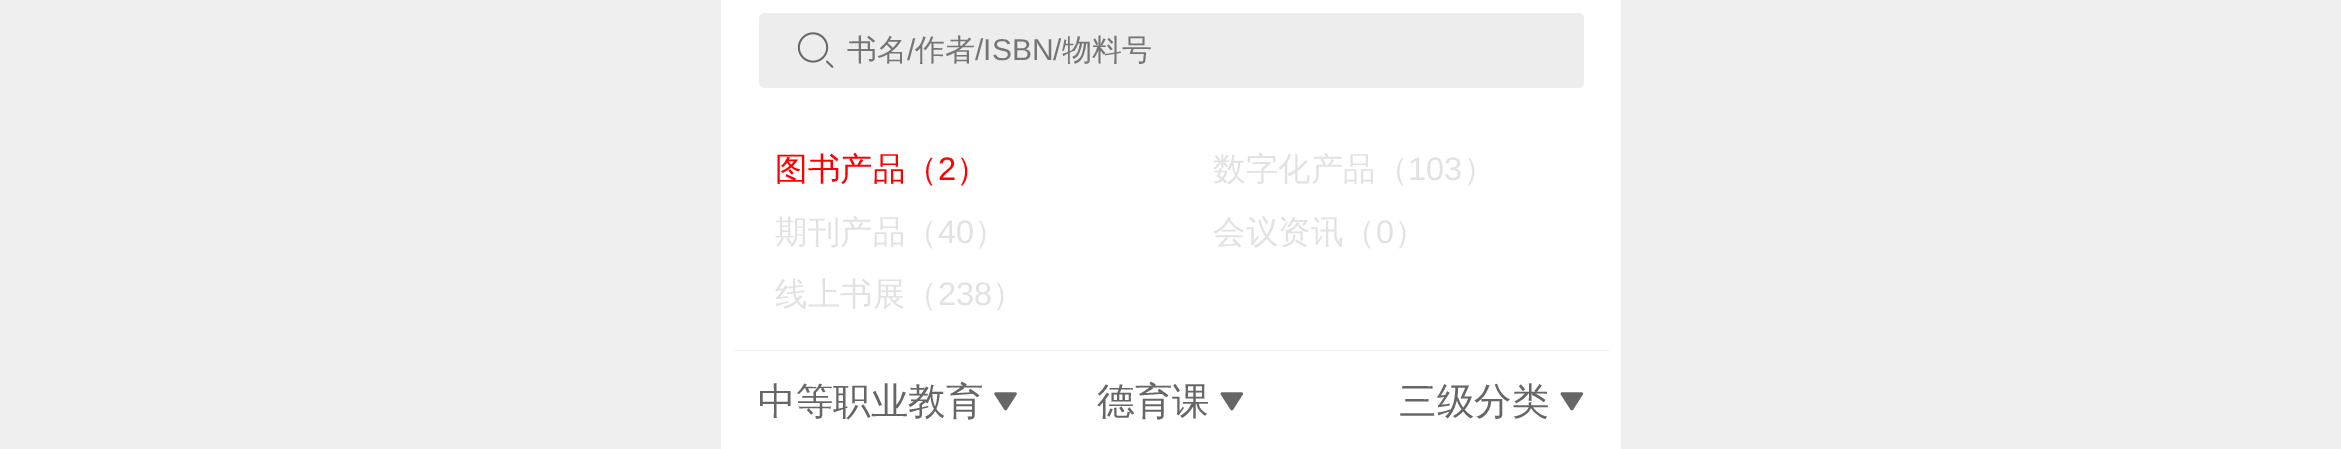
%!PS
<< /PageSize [2341 449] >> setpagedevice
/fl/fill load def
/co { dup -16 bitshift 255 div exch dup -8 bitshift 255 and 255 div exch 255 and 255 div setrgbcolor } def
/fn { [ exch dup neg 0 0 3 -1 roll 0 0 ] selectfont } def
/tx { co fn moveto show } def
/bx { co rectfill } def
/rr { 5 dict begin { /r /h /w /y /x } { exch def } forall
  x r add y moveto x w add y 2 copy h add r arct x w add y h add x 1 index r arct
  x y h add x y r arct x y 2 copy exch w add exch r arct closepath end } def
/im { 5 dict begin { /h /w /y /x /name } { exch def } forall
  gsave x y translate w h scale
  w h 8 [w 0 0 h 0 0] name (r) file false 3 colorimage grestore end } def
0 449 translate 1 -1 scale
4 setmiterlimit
0 0 2341 449 16#EFEFEF bx
721 0 900 449 16#FFFFFF bx
16#EDEDED co
759 13 825 75 6 rr fl
(media/1.raw) 797 32 37 36 im
734 350 875 1 16#EFEFEF bx
(media/2.raw) 994 392 23 19 im
(media/3.raw) 1220 392 24 19 im
(media/3.raw) 1560 392 24 19 im
(书名) 847 60 /WenQuanYiZenHei-Medium 30 16#757575 tx
(/) 907 60 /LiberationSans-Regular 30 16#757575 tx
(作者) 915 60 /WenQuanYiZenHei-Medium 30 16#757575 tx
(/ISBN/) 975 60 /LiberationSans-Regular 30 16#757575 tx
(物料号) 1062 60 /WenQuanYiZenHei-Medium 30 16#757575 tx
(图书产品（) 775 180 /WenQuanYiZenHei-Medium 32.5 16#FF0000 tx
(2) 938 180 /LiberationSans-Regular 32.5 16#FF0000 tx
(）) 956 180 /WenQuanYiZenHei-Medium 32.5 16#FF0000 tx
(数字化产品（) 1213 180 /WenQuanYiZenHei-Medium 32.5 16#E2E2E2 tx
(103) 1408 180 /LiberationSans-Regular 32.5 16#E2E2E2 tx
(）) 1463 180 /WenQuanYiZenHei-Medium 32.5 16#E2E2E2 tx
(期刊产品（) 775 243 /WenQuanYiZenHei-Medium 32.5 16#E2E2E2 tx
(40) 938 243 /LiberationSans-Regular 32.5 16#E2E2E2 tx
(）) 974 243 /WenQuanYiZenHei-Medium 32.5 16#E2E2E2 tx
(会议资讯（) 1213 243 /WenQuanYiZenHei-Medium 32.5 16#E2E2E2 tx
(0) 1376 243 /LiberationSans-Regular 32.5 16#E2E2E2 tx
(）) 1394 243 /WenQuanYiZenHei-Medium 32.5 16#E2E2E2 tx
(线上书展（) 775 305 /WenQuanYiZenHei-Medium 32.5 16#E2E2E2 tx
(238) 938 305 /LiberationSans-Regular 32.5 16#E2E2E2 tx
(）) 992 305 /WenQuanYiZenHei-Medium 32.5 16#E2E2E2 tx
(中等职业教育) 758 414 /WenQuanYiZenHei-Medium 37.5 16#666666 tx
(德育课) 1097 414 /WenQuanYiZenHei-Medium 37.5 16#666666 tx
(三级分类) 1399 414 /WenQuanYiZenHei-Medium 37.5 16#666666 tx
showpage
